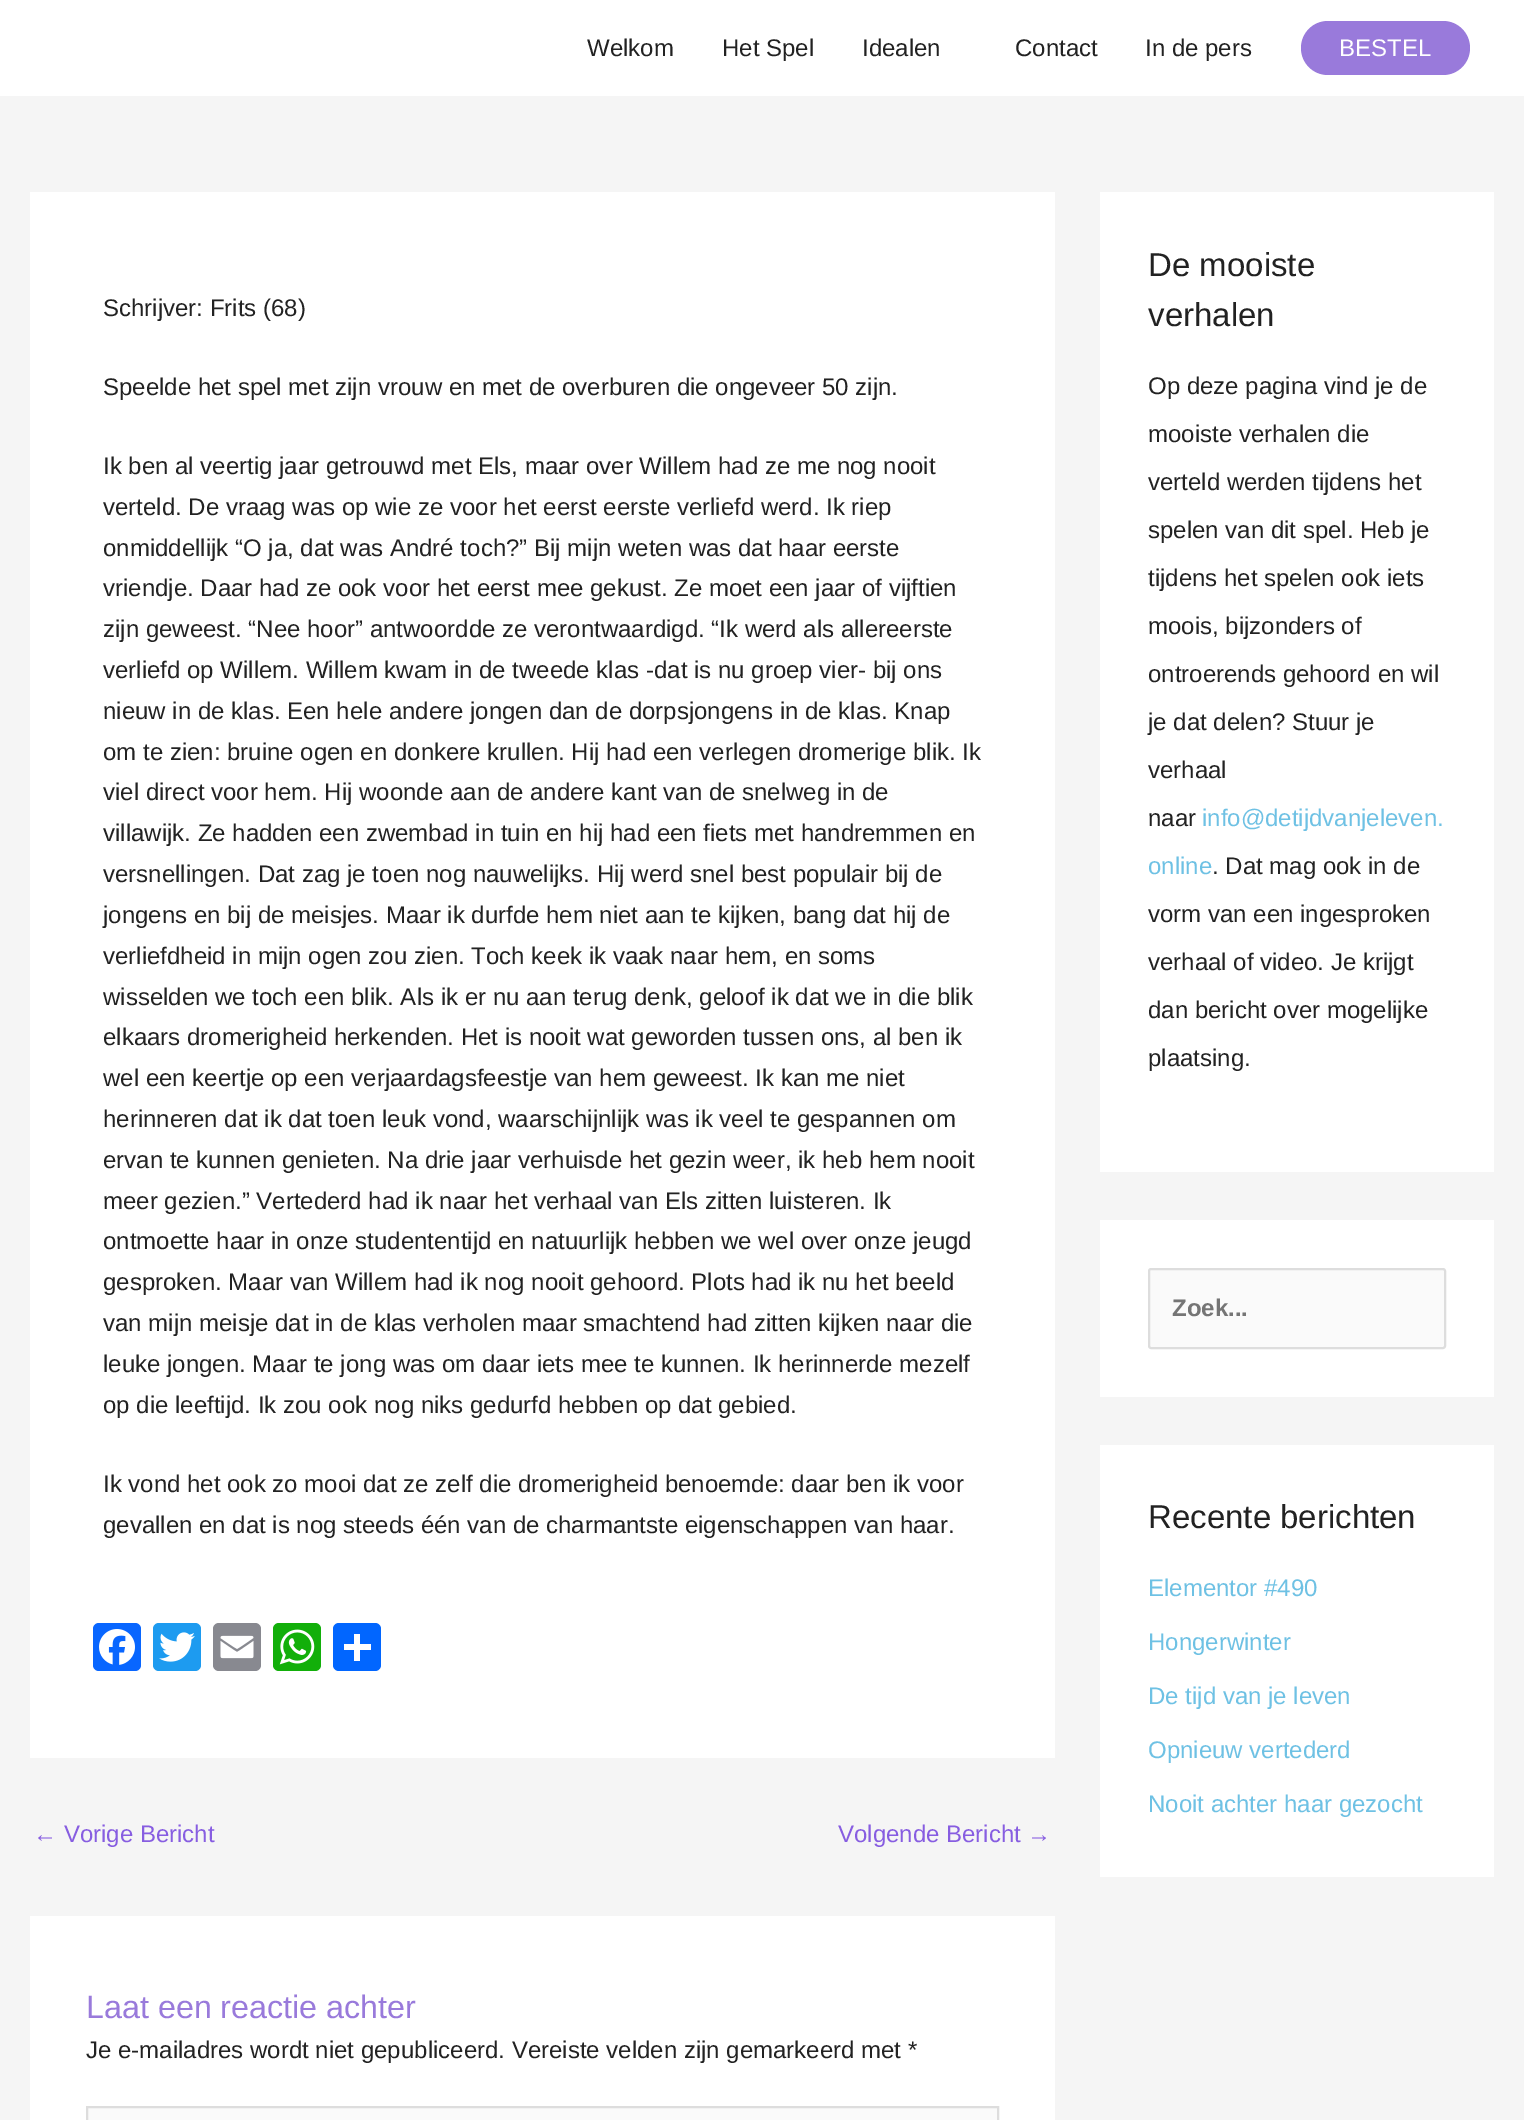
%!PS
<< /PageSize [1524 2120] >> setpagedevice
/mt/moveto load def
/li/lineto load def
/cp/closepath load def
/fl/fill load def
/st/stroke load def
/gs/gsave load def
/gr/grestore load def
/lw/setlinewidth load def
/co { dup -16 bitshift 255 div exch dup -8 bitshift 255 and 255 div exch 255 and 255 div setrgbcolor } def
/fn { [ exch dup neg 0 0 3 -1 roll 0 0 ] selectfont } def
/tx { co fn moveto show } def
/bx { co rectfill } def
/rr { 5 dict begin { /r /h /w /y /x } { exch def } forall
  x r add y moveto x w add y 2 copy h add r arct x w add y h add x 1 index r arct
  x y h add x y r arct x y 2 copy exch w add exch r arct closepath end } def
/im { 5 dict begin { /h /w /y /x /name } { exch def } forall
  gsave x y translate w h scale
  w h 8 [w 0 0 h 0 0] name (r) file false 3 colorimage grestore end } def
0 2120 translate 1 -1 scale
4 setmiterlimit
0 0 1524 2120 16#F5F5F5 bx
0 0 1524 96 16#FFFFFF bx
16#997ADB co
1301 21 169 54 27 rr fl
30 192 1025 1566 16#FFFFFF bx
16#0866FF co
93 1623 48 48 6 rr fl
(media/1.raw) 99 1629 36 36 im
16#1D9BF0 co
153 1623 48 48 6 rr fl
(media/2.raw) 159 1632 36 30 im
16#888990 co
213 1623 48 48 6 rr fl
(media/3.raw) 220 1635 34 24 im
16#12AF0A co
273 1623 48 48 6 rr fl
(media/4.raw) 279 1629 36 36 im
16#0166FF co
333 1623 48 48 6 rr fl
354 1634 6 27 16#FFFFFF bx
344 1644 27 6 16#FFFFFF bx
30 1916 1025 204 16#FFFFFF bx
16#FAFAFA co
87 2107 mt 998 2107 li 998 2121 li 87 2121 li cp gs fl gr
16#DDDDDD co
2 lw
st
1100 192 394 980 16#FFFFFF bx
1100 1220 394 177 16#FFFFFF bx
16#FAFAFA co
1149 1269 296 79 2 rr gs fl gr
16#DDDDDD co
st
1100 1445 394 432 16#FFFFFF bx
(Welkom) 587 56 /LiberationSans-Regular 24 16#222222 tx
(Het Spel) 722 56 /LiberationSans-Regular 24 16#222222 tx
(Idealen) 862 56 /LiberationSans-Regular 24 16#222222 tx
(Contact) 1015 56 /LiberationSans-Regular 24 16#222222 tx
(In de pers) 1145 56 /LiberationSans-Regular 24 16#222222 tx
(BESTEL) 1339 56 /LiberationSans-Regular 24 16#FFFFFF tx
(Schrijver: Frits \(68\)) 103 316 /LiberationSans-Regular 24 16#222222 tx
(Speelde het spel met zijn vrouw en met de overburen die ongeveer 50 zijn.) 103 395 /LiberationSans-Regular 24 16#222222 tx
(Ik ben al veertig jaar getrouwd met Els, maar over Willem had ze me nog nooit) 103 474 /LiberationSans-Regular 24 16#222222 tx
(verteld. De vraag was op wie ze voor het eerst eerste verliefd werd. Ik riep) 103 515 /LiberationSans-Regular 24 16#222222 tx
(onmiddellijk “O ja, dat was André toch?” Bij mijn weten was dat haar eerste) 103 556 /LiberationSans-Regular 24 16#222222 tx
(vriendje. Daar had ze ook voor het eerst mee gekust. Ze moet een jaar of vijftien) 103 596 /LiberationSans-Regular 24 16#222222 tx
(zijn geweest. “Nee hoor” antwoordde ze verontwaardigd. “Ik werd als allereerste) 103 637 /LiberationSans-Regular 24 16#222222 tx
(verliefd op Willem. Willem kwam in de tweede klas -dat is nu groep vier- bij ons) 103 678 /LiberationSans-Regular 24 16#222222 tx
(nieuw in de klas. Een hele andere jongen dan de dorpsjongens in de klas. Knap) 103 719 /LiberationSans-Regular 24 16#222222 tx
(om te zien: bruine ogen en donkere krullen. Hij had een verlegen dromerige blik. Ik) 103 760 /LiberationSans-Regular 24 16#222222 tx
(viel direct voor hem. Hij woonde aan de andere kant van de snelweg in de) 103 800 /LiberationSans-Regular 24 16#222222 tx
(villawijk. Ze hadden een zwembad in tuin en hij had een fiets met handremmen en) 103 841 /LiberationSans-Regular 24 16#222222 tx
(versnellingen. Dat zag je toen nog nauwelijks. Hij werd snel best populair bij de) 103 882 /LiberationSans-Regular 24 16#222222 tx
(jongens en bij de meisjes. Maar ik durfde hem niet aan te kijken, bang dat hij de) 103 923 /LiberationSans-Regular 24 16#222222 tx
(verliefdheid in mijn ogen zou zien. Toch keek ik vaak naar hem, en soms) 103 964 /LiberationSans-Regular 24 16#222222 tx
(wisselden we toch een blik. Als ik er nu aan terug denk, geloof ik dat we in die blik) 103 1005 /LiberationSans-Regular 24 16#222222 tx
(elkaars dromerigheid herkenden. Het is nooit wat geworden tussen ons, al ben ik) 103 1045 /LiberationSans-Regular 24 16#222222 tx
(wel een keertje op een verjaardagsfeestje van hem geweest. Ik kan me niet) 103 1086 /LiberationSans-Regular 24 16#222222 tx
(herinneren dat ik dat toen leuk vond, waarschijnlijk was ik veel te gespannen om) 103 1127 /LiberationSans-Regular 24 16#222222 tx
(ervan te kunnen genieten. Na drie jaar verhuisde het gezin weer, ik heb hem nooit) 103 1168 /LiberationSans-Regular 24 16#222222 tx
(meer gezien.” Vertederd had ik naar het verhaal van Els zitten luisteren. Ik) 103 1209 /LiberationSans-Regular 24 16#222222 tx
(ontmoette haar in onze studententijd en natuurlijk hebben we wel over onze jeugd) 103 1249 /LiberationSans-Regular 24 16#222222 tx
(gesproken. Maar van Willem had ik nog nooit gehoord. Plots had ik nu het beeld) 103 1290 /LiberationSans-Regular 24 16#222222 tx
(van mijn meisje dat in de klas verholen maar smachtend had zitten kijken naar die) 103 1331 /LiberationSans-Regular 24 16#222222 tx
(leuke jongen. Maar te jong was om daar iets mee te kunnen. Ik herinnerde mezelf) 103 1372 /LiberationSans-Regular 24 16#222222 tx
(op die leeftijd. Ik zou ook nog niks gedurfd hebben op dat gebied.) 103 1413 /LiberationSans-Regular 24 16#222222 tx
(Ik vond het ook zo mooi dat ze zelf die dromerigheid benoemde: daar ben ik voor) 103 1492 /LiberationSans-Regular 24 16#222222 tx
(gevallen en dat is nog steeds één van de charmantste eigenschappen van haar.) 103 1533 /LiberationSans-Regular 24 16#222222 tx
(← Vorige Bericht) 33 1842 /LiberationSans-Regular 24 16#875DE1 tx
(Volgende Bericht →) 838 1842 /LiberationSans-Regular 24 16#875DE1 tx
(Laat een reactie achter) 86 2018 /LiberationSans-Regular 32.25 16#997ADB tx
(Je e-mailadres wordt niet gepubliceerd. Vereiste velden zijn gemarkeerd met *) 86 2058 /LiberationSans-Regular 24 16#222222 tx
(De mooiste) 1148 276 /LiberationSans-Regular 33 16#222222 tx
(verhalen) 1148 326 /LiberationSans-Regular 33 16#222222 tx
(Op deze pagina vind je de) 1148 394 /LiberationSans-Regular 24 16#222222 tx
(mooiste verhalen die) 1148 442 /LiberationSans-Regular 24 16#222222 tx
(verteld werden tijdens het) 1148 490 /LiberationSans-Regular 24 16#222222 tx
(spelen van dit spel. Heb je) 1148 538 /LiberationSans-Regular 24 16#222222 tx
(tijdens het spelen ook iets) 1148 586 /LiberationSans-Regular 24 16#222222 tx
(moois, bijzonders of) 1148 634 /LiberationSans-Regular 24 16#222222 tx
(ontroerends gehoord en wil) 1148 682 /LiberationSans-Regular 24 16#222222 tx
(je dat delen? Stuur je) 1148 730 /LiberationSans-Regular 24 16#222222 tx
(verhaal) 1148 778 /LiberationSans-Regular 24 16#222222 tx
(naar) 1148 826 /LiberationSans-Regular 24 16#222222 tx
(info@detijdvanjeleven.) 1202 826 /LiberationSans-Regular 24 16#6EC1E4 tx
(online) 1148 874 /LiberationSans-Regular 24 16#6EC1E4 tx
(. Dat mag ook in de) 1212 874 /LiberationSans-Regular 24 16#222222 tx
(vorm van een ingesproken) 1148 922 /LiberationSans-Regular 24 16#222222 tx
(verhaal of video. Je krijgt) 1148 970 /LiberationSans-Regular 24 16#222222 tx
(dan bericht over mogelijke) 1148 1018 /LiberationSans-Regular 24 16#222222 tx
(plaatsing.) 1148 1066 /LiberationSans-Regular 24 16#222222 tx
(Zoek...) 1172 1316 /LiberationSans-Bold 24 16#757575 tx
(Recente berichten) 1148 1528 /LiberationSans-Regular 33 16#222222 tx
(Elementor #490) 1148 1596 /LiberationSans-Regular 24 16#6EC1E4 tx
(Hongerwinter) 1148 1650 /LiberationSans-Regular 24 16#6EC1E4 tx
(De tijd van je leven) 1148 1704 /LiberationSans-Regular 24 16#6EC1E4 tx
(Opnieuw vertederd) 1148 1758 /LiberationSans-Regular 24 16#6EC1E4 tx
(Nooit achter haar gezocht) 1148 1812 /LiberationSans-Regular 24 16#6EC1E4 tx
showpage
